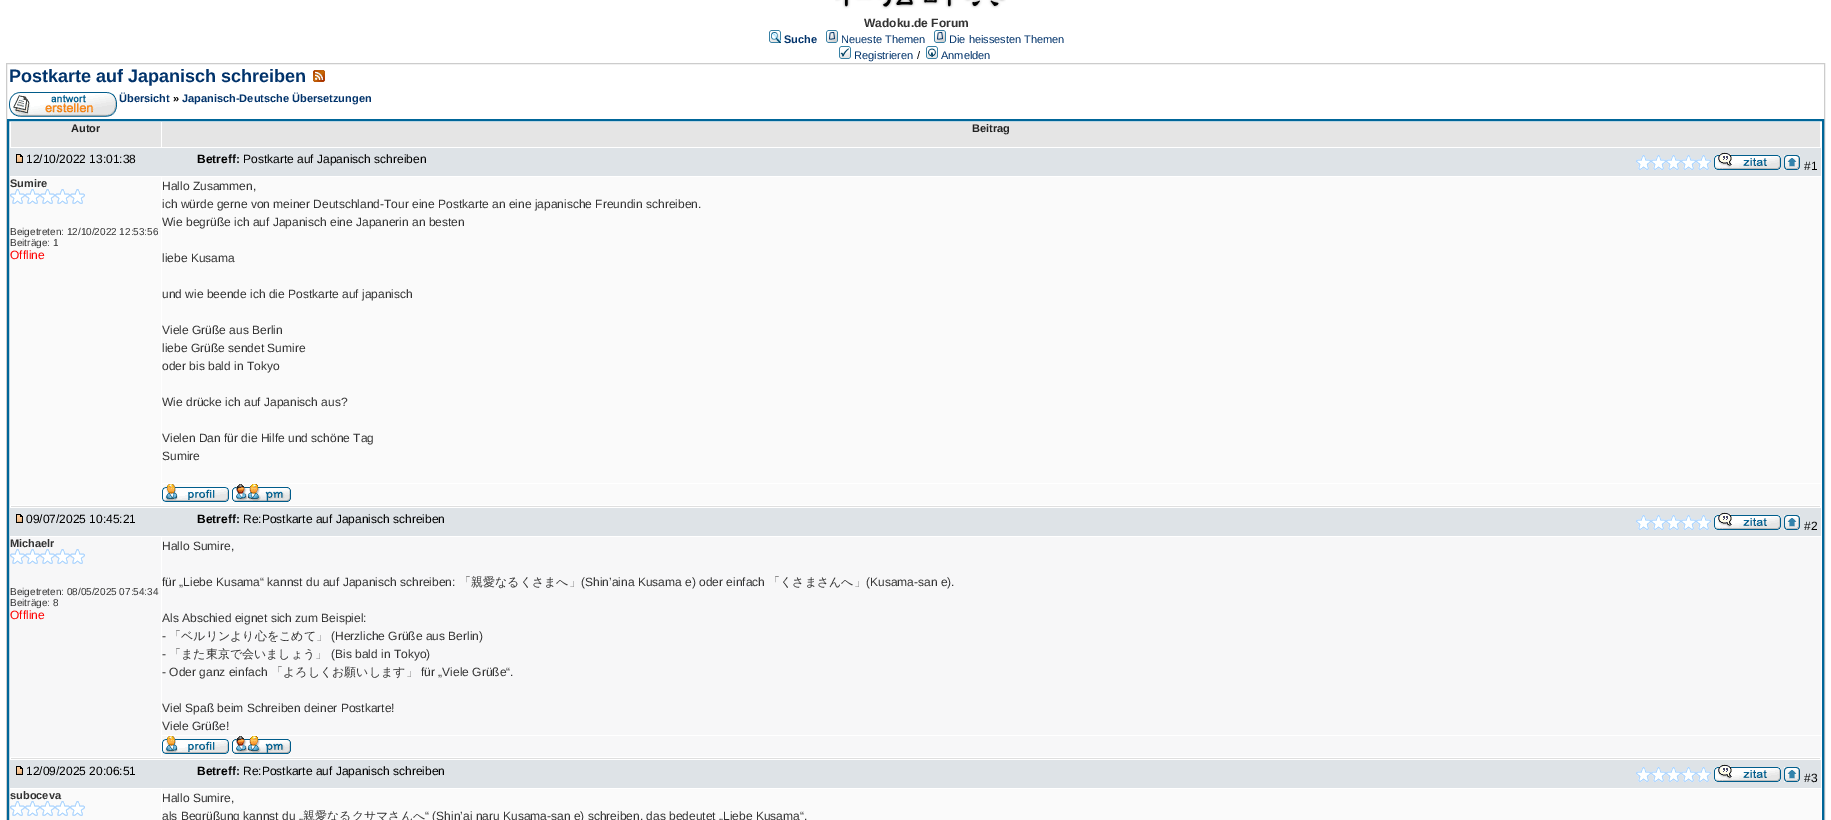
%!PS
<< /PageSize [1831 820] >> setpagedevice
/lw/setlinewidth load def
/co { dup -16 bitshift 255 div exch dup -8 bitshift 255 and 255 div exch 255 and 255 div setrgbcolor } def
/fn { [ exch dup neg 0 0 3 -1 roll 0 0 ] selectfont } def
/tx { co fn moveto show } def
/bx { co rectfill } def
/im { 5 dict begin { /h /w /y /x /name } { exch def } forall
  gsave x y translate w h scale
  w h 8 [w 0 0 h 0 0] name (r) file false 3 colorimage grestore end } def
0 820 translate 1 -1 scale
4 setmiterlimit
0 0 1831 820 16#FFFFFF bx
(media/1.raw) 835 0 171 9 im
(media/2.raw) 769 30 12 13 im
(media/3.raw) 826 30 12 13 im
(media/3.raw) 934 30 12 13 im
(media/4.raw) 839 46 12 13 im
(media/5.raw) 926 46 12 13 im
16#CCCCCC co
6.5 63.5 1818 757 rectstroke
(media/6.raw) 313 70 12 12 im
(media/7.raw) 9 92 108 25 im
16#006699 co
2 lw
8 120 1815 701 rectstroke
11 122 150 25 16#E5E5E5 bx
162 122 1658 25 16#E5E5E5 bx
10 148 1811 28 16#DEE3E7 bx
(media/8.raw) 16 154 7 9 im
(media/9.raw) 1636 155 15 15 im
(media/9.raw) 1651 155 15 15 im
(media/9.raw) 1666 155 15 15 im
(media/9.raw) 1681 155 15 15 im
(media/9.raw) 1696 155 15 15 im
(media/10.raw) 1714 152 67 18 im
(media/11.raw) 1784 155 16 15 im
10 177 151 328 16#FAFAFA bx
(media/12.raw) 10 189 15 15 im
(media/12.raw) 25 189 15 15 im
(media/12.raw) 40 189 15 15 im
(media/12.raw) 55 189 15 15 im
(media/12.raw) 70 189 15 15 im
162 177 1659 306 16#FAFAFA bx
162 484 1659 21 16#FAFAFA bx
(media/13.raw) 162 484 67 18 im
(media/14.raw) 232 484 59 18 im
10 506 1811 1 16#DFDFDF bx
1820 506 1 1 16#FFFFFF bx
10 506 1 1 16#FFFFFF bx
10 508 1811 28 16#DEE3E7 bx
(media/8.raw) 16 514 7 9 im
(media/9.raw) 1636 515 15 15 im
(media/9.raw) 1651 515 15 15 im
(media/9.raw) 1666 515 15 15 im
(media/9.raw) 1681 515 15 15 im
(media/9.raw) 1696 515 15 15 im
(media/10.raw) 1714 512 67 18 im
(media/11.raw) 1784 515 16 15 im
10 537 151 220 16#F7F7F8 bx
(media/15.raw) 10 549 15 15 im
(media/15.raw) 25 549 15 15 im
(media/15.raw) 40 549 15 15 im
(media/15.raw) 55 549 15 15 im
(media/15.raw) 70 549 15 15 im
162 537 1659 198 16#F7F7F8 bx
162 736 1659 21 16#F7F7F8 bx
(media/16.raw) 162 736 67 18 im
(media/17.raw) 232 736 59 18 im
10 758 1811 1 16#DFDFDF bx
1820 758 1 1 16#FFFFFF bx
10 758 1 1 16#FFFFFF bx
10 760 1811 28 16#DEE3E7 bx
(media/8.raw) 16 766 7 9 im
(media/9.raw) 1636 767 15 15 im
(media/9.raw) 1651 767 15 15 im
(media/9.raw) 1666 767 15 15 im
(media/9.raw) 1681 767 15 15 im
(media/9.raw) 1696 767 15 15 im
(media/10.raw) 1714 764 67 18 im
(media/11.raw) 1784 767 16 15 im
10 789 151 31 16#FAFAFA bx
(media/12.raw) 10 801 15 15 im
(media/12.raw) 25 801 15 15 im
(media/12.raw) 40 801 15 15 im
(media/12.raw) 55 801 15 15 im
(media/12.raw) 70 801 15 15 im
162 789 1659 31 16#FAFAFA bx
(Wadoku.de Forum) 864 27 /LiberationSans-Bold 12 16#333333 tx
(Suche) 784 43 /LiberationSans-Bold 11 16#01336B tx
(Neueste Themen) 841 43 /LiberationSans-Regular 11 16#01336B tx
(Die heissesten Themen) 949 43 /LiberationSans-Regular 11 16#01336B tx
(Registrieren) 854 59 /LiberationSans-Regular 11 16#01336B tx
(/) 917 59 /LiberationSans-Regular 11 16#000000 tx
(Anmelden) 941 59 /LiberationSans-Regular 11 16#01336B tx
(Postkarte auf Japanisch schreiben) 9 82 /LiberationSans-Bold 18 16#01336B tx
(Übersicht) 119 102 /LiberationSans-Bold 11 16#01336B tx
(») 173 102 /LiberationSans-Bold 11 16#000000 tx
(Japanisch-Deutsche Übersetzungen) 182 102 /LiberationSans-Bold 11 16#01336B tx
(Autor) 71 132 /LiberationSans-Bold 11 16#222222 tx
(Beitrag) 972 132 /LiberationSans-Bold 11 16#222222 tx
(12/10/2022 13:01:38) 26 163 /LiberationSans-Regular 12 16#000000 tx
(Betreff:) 197 163 /LiberationSans-Bold 12 16#000000 tx
(Postkarte auf Japanisch schreiben) 243 163 /LiberationSans-Regular 12 16#000000 tx
(#1) 1804 170 /LiberationSans-Regular 12 16#000000 tx
(Sumire) 10 187 /LiberationSans-Bold 11 16#333333 tx
(Beigetreten: 12/10/2022 12:53:56) 10 235 /LiberationSans-Regular 10 16#333333 tx
(Beiträge: 1) 10 246 /LiberationSans-Regular 10 16#333333 tx
(Offline) 10 259 /LiberationSans-Regular 12 16#FF0000 tx
(Hallo Zusammen,) 162 190 /LiberationSans-Regular 12 16#333333 tx
(ich würde gerne von meiner Deutschland-Tour eine Postkarte an eine japanische Freundin schreiben.) 162 208 /LiberationSans-Regular 12 16#333333 tx
(Wie begrüße ich auf Japanisch eine Japanerin an besten) 162 226 /LiberationSans-Regular 12 16#333333 tx
(liebe Kusama) 162 262 /LiberationSans-Regular 12 16#333333 tx
(und wie beende ich die Postkarte auf japanisch) 162 298 /LiberationSans-Regular 12 16#333333 tx
(Viele Grüße aus Berlin) 162 334 /LiberationSans-Regular 12 16#333333 tx
(liebe Grüße sendet Sumire) 162 352 /LiberationSans-Regular 12 16#333333 tx
(oder bis bald in Tokyo) 162 370 /LiberationSans-Regular 12 16#333333 tx
(Wie drücke ich auf Japanisch aus?) 162 406 /LiberationSans-Regular 12 16#333333 tx
(Vielen Dan für die Hilfe und schöne Tag) 162 442 /LiberationSans-Regular 12 16#333333 tx
(Sumire) 162 460 /LiberationSans-Regular 12 16#333333 tx
(09/07/2025 10:45:21) 26 523 /LiberationSans-Regular 12 16#000000 tx
(Betreff:) 197 523 /LiberationSans-Bold 12 16#000000 tx
(Re:Postkarte auf Japanisch schreiben) 243 523 /LiberationSans-Regular 12 16#000000 tx
(#2) 1804 530 /LiberationSans-Regular 12 16#000000 tx
(Michaelr) 10 547 /LiberationSans-Bold 11 16#333333 tx
(Beigetreten: 08/05/2025 07:54:34) 10 595 /LiberationSans-Regular 10 16#333333 tx
(Beiträge: 8) 10 606 /LiberationSans-Regular 10 16#333333 tx
(Offline) 10 619 /LiberationSans-Regular 12 16#FF0000 tx
(Hallo Sumire,) 162 550 /LiberationSans-Regular 12 16#333333 tx
(für „Liebe Kusama“ kannst du auf Japanisch schreiben:) 162 586 /LiberationSans-Regular 12 16#333333 tx
(「親愛なるくさまへ」) 459 586 /WenQuanYiZenHei-Medium 12 16#333333 tx
(\(Shin’aina Kusama e\) oder einfach) 581 586 /LiberationSans-Regular 12 16#333333 tx
(「くさまさんへ」) 768 586 /WenQuanYiZenHei-Medium 12 16#333333 tx
(\(Kusama-san e\).) 866 586 /LiberationSans-Regular 12 16#333333 tx
(Als Abschied eignet sich zum Beispiel:) 162 622 /LiberationSans-Regular 12 16#333333 tx
(-) 162 640 /LiberationSans-Regular 12 16#333333 tx
(「ベルリンより心をこめて」) 169 640 /WenQuanYiZenHei-Medium 12 16#333333 tx
(\(Herzliche Grüße aus Berlin\)) 331 640 /LiberationSans-Regular 12 16#333333 tx
(-) 162 658 /LiberationSans-Regular 12 16#333333 tx
(「また東京で会いましょう」) 169 658 /WenQuanYiZenHei-Medium 12 16#333333 tx
(\(Bis bald in Tokyo\)) 331 658 /LiberationSans-Regular 12 16#333333 tx
(- Oder ganz einfach) 162 676 /LiberationSans-Regular 12 16#333333 tx
(「よろしくお願いします」) 271 676 /WenQuanYiZenHei-Medium 12 16#333333 tx
(für „Viele Grüße“.) 421 676 /LiberationSans-Regular 12 16#333333 tx
(Viel Spaß beim Schreiben deiner Postkarte!) 162 712 /LiberationSans-Regular 12 16#333333 tx
(Viele Grüße!) 162 730 /LiberationSans-Regular 12 16#333333 tx
(12/09/2025 20:06:51) 26 775 /LiberationSans-Regular 12 16#000000 tx
(Betreff:) 197 775 /LiberationSans-Bold 12 16#000000 tx
(Re:Postkarte auf Japanisch schreiben) 243 775 /LiberationSans-Regular 12 16#000000 tx
(#3) 1804 782 /LiberationSans-Regular 12 16#000000 tx
(suboceva) 10 799 /LiberationSans-Bold 11 16#333333 tx
(Hallo Sumire,) 162 802 /LiberationSans-Regular 12 16#333333 tx
(als Begrüßung kannst du „) 162 820 /LiberationSans-Regular 12 16#333333 tx
(親愛なるクサマさんへ) 303 820 /WenQuanYiZenHei-Medium 12 16#333333 tx
(“ \(Shin’ai naru Kusama-san e\) schreiben, das bedeutet „Liebe Kusama“.) 425 820 /LiberationSans-Regular 12 16#333333 tx
showpage
